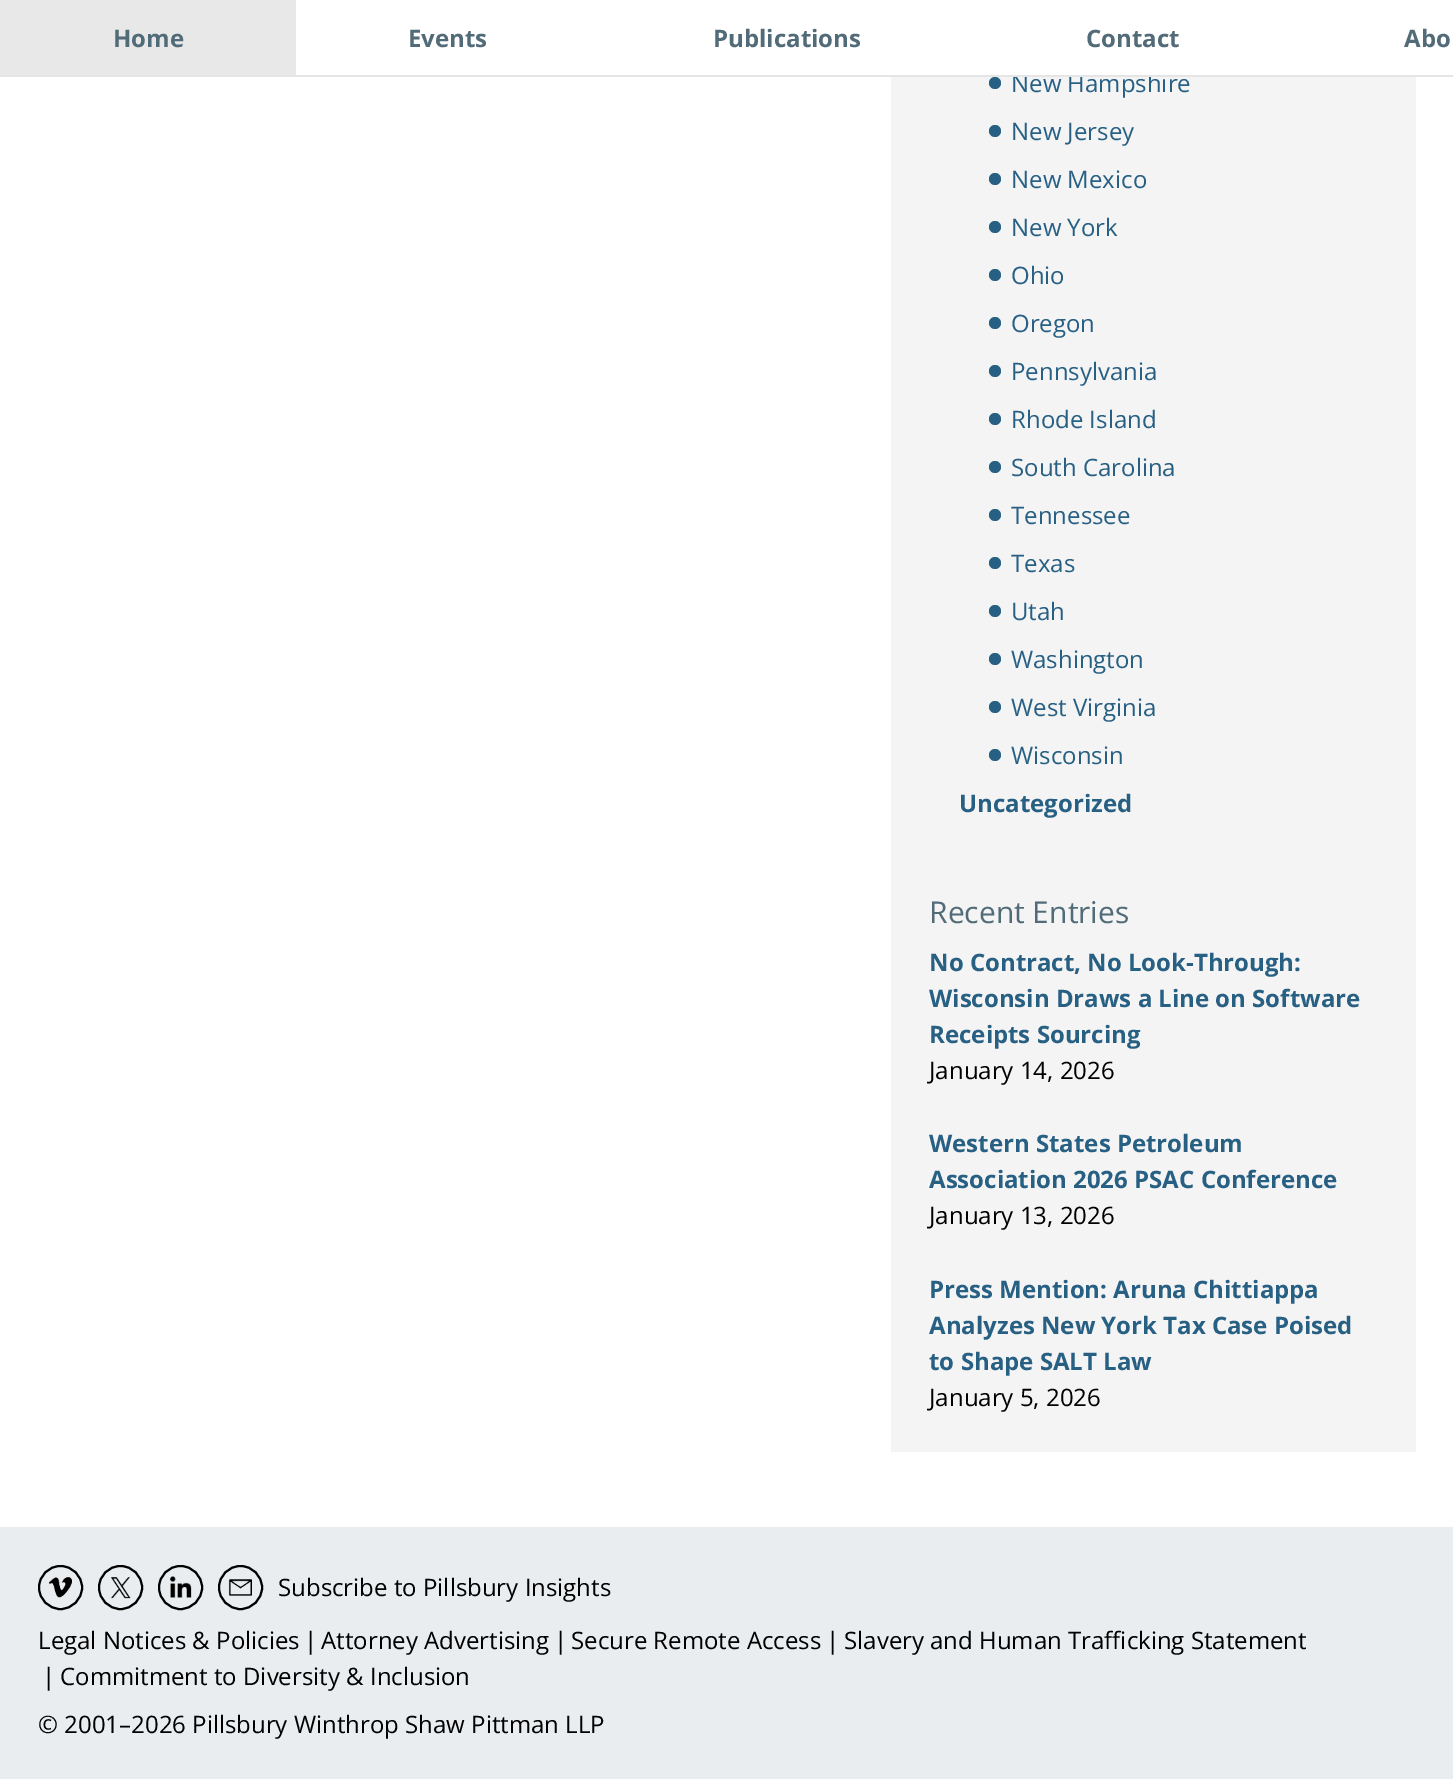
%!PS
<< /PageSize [1453 1779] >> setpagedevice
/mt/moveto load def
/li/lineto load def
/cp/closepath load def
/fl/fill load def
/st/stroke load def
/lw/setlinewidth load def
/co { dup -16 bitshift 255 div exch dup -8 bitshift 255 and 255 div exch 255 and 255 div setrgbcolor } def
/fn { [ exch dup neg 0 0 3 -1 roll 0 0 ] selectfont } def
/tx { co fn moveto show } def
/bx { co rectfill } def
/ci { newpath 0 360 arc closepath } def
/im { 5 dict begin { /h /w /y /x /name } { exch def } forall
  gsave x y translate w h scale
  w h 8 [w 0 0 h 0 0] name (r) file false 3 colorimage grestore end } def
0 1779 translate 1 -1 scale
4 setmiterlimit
0 0 1453 1779 16#FFFFFF bx
0 0 296 75 16#E8E8E8 bx
891 77 525 1375 16#F4F4F4 bx
16#286084 co
995 83 6 ci fl
995 131 6 ci fl
995 179 6 ci fl
995 227 6 ci fl
995 275 6 ci fl
995 323 6 ci fl
995 371 6 ci fl
995 419 6 ci fl
995 467 6 ci fl
995 515 6 ci fl
995 563 6 ci fl
995 611 6 ci fl
995 659 6 ci fl
995 707 6 ci fl
995 755 6 ci fl
0 1527 1453 252 16#E9EDEF bx
(media/1.raw) 48 1577 24 21 im
16#000000 co
2 lw
60.5 1587.5 21.5 ci st
(media/2.raw) 111 1577 20 22 im
120.5 1587.5 21.5 ci st
(media/3.raw) 170 1576 22 22 im
180.5 1587.5 21.5 ci st
(media/4.raw) 228 1579 24 17 im
240.5 1587.5 21.5 ci st
(Home) 113 47 /OpenSans-Bold 24 16#526B78 tx
(Events) 408 47 /OpenSans-Bold 24 16#526B78 tx
(Publications) 713 47 /OpenSans-Bold 24 16#526B78 tx
(Contact) 1086 47 /OpenSans-Bold 24 16#526B78 tx
(Abo) 1404 47 /OpenSans-Bold 24 16#526B78 tx
(New Hampshire) 1011 92 /OpenSans-Regular 24 16#286084 tx
1013 73 153 2 16#FFFFFF bx
16#E5E5E5 co
0 75 mt 0 77 li 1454 77 li 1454 2 li 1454 75 li cp fl
(New Jersey) 1011 140 /OpenSans-Regular 24 16#286084 tx
(New Mexico) 1011 188 /OpenSans-Regular 24 16#286084 tx
(New York) 1011 236 /OpenSans-Regular 24 16#286084 tx
(Ohio) 1011 284 /OpenSans-Regular 24 16#286084 tx
(Oregon) 1011 332 /OpenSans-Regular 24 16#286084 tx
(Pennsylvania) 1011 380 /OpenSans-Regular 24 16#286084 tx
(Rhode Island) 1011 428 /OpenSans-Regular 24 16#286084 tx
(South Carolina) 1011 476 /OpenSans-Regular 24 16#286084 tx
(Tennessee) 1011 524 /OpenSans-Regular 24 16#286084 tx
(Texas) 1011 572 /OpenSans-Regular 24 16#286084 tx
(Utah) 1011 620 /OpenSans-Regular 24 16#286084 tx
(Washington) 1011 668 /OpenSans-Regular 24 16#286084 tx
(West Virginia) 1011 716 /OpenSans-Regular 24 16#286084 tx
(Wisconsin) 1011 764 /OpenSans-Regular 24 16#286084 tx
(Uncategorized) 959 812 /OpenSans-Bold 24 16#286084 tx
(Recent Entries) 929 923 /OpenSans-Regular 30 16#526B78 tx
(No Contract, No Look-Through:) 929 971 /OpenSans-Bold 24 16#286084 tx
(Wisconsin Draws a Line on Software) 929 1007 /OpenSans-Bold 24 16#286084 tx
(Receipts Sourcing) 929 1043 /OpenSans-Bold 24 16#286084 tx
(January 14, 2026) 929 1079 /OpenSans-Regular 24 16#000000 tx
(Western States Petroleum) 929 1152 /OpenSans-Bold 24 16#286084 tx
(Association 2026 PSAC Conference) 929 1188 /OpenSans-Bold 24 16#286084 tx
(January 13, 2026) 929 1224 /OpenSans-Regular 24 16#000000 tx
(Press Mention: Aruna Chittiappa) 929 1298 /OpenSans-Bold 24 16#286084 tx
(Analyzes New York Tax Case Poised) 929 1334 /OpenSans-Bold 24 16#286084 tx
(to Shape SALT Law) 929 1370 /OpenSans-Bold 24 16#286084 tx
(January 5, 2026) 929 1406 /OpenSans-Regular 24 16#000000 tx
(Subscribe to Pillsbury Insights) 278 1596 /OpenSans-Regular 24 16#000000 tx
(Legal Notices & Policies) 38 1649 /OpenSans-Regular 24 16#000000 tx
(|) 304 1649 /OpenSans-Regular 24 16#000000 tx
(Attorney Advertising) 321 1649 /OpenSans-Regular 24 16#000000 tx
(|) 554 1649 /OpenSans-Regular 24 16#000000 tx
(Secure Remote Access) 571 1649 /OpenSans-Regular 24 16#000000 tx
(|) 826 1649 /OpenSans-Regular 24 16#000000 tx
(Slavery and Human Trafficking Statement) 844 1649 /OpenSans-Regular 24 16#000000 tx
(|) 42 1685 /OpenSans-Regular 24 16#000000 tx
(Commitment to Diversity & Inclusion) 60 1685 /OpenSans-Regular 24 16#000000 tx
(© 2001–2026 Pillsbury Winthrop Shaw Pittman LLP) 38 1733 /OpenSans-Regular 24 16#000000 tx
showpage
